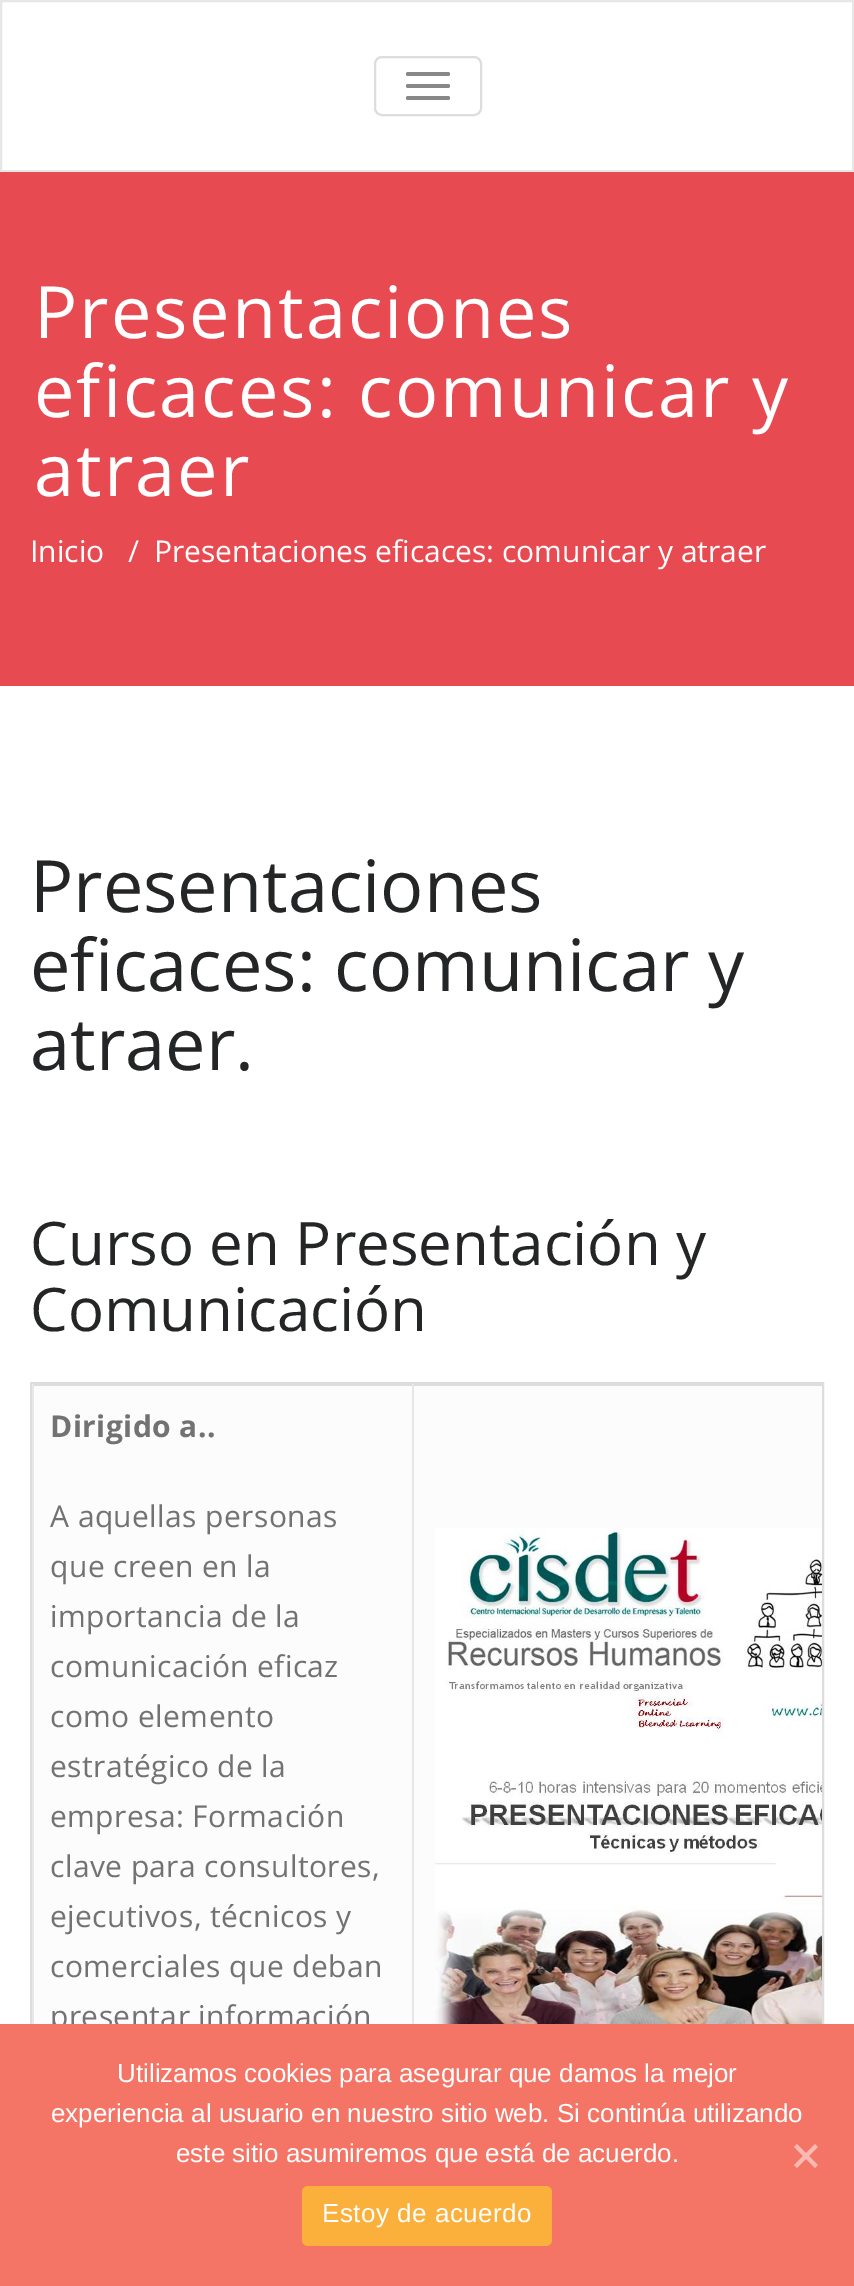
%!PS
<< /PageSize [854 2286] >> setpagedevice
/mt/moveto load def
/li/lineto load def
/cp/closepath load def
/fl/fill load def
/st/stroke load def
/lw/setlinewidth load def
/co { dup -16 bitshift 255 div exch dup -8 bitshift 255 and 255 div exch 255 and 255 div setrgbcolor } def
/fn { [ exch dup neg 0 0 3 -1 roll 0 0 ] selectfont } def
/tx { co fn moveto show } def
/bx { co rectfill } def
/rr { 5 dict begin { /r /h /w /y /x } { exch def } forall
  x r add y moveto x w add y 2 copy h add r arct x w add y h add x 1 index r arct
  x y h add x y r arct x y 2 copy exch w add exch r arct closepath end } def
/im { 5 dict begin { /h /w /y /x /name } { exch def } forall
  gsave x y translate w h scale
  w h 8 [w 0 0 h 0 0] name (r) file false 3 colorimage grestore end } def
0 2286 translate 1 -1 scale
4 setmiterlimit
0 0 854 2286 16#FFFFFF bx
16#E7E7E7 co
2 lw
1 1 852 170 rectstroke
16#DDDDDD co
375 57 106 58 7 rr st
16#888888 co
406 72 44 4 2 rr fl
406 84 44 4 2 rr fl
406 96 44 4 2 rr fl
0 172 854 514 16#E84A52 bx
16#DDDDDD co
31 1383 792 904 rectstroke
34 1386 788 638 16#FCFCFC bx
32 1384 790 2 16#DDDDDD bx
(media/1.raw) 435 1528 387 496 im
412 1384 2 640 16#E8E7E7 bx
32 1384 2 640 16#E8E7E7 bx
/OpenSans-Regular 72 fn
16#FFFFFF co
34 338 mt 2 0 (Presentaciones) ashow
34 417 mt 2 0 (eficaces: comunicar y) ashow
34 496 mt 2 0 (atraer) ashow
(Inicio) 30 562 /OpenSans-Regular 30 16#FFFFFF tx
(/) 128 562 /OpenSans-Regular 30 16#FFFFFF tx
(Presentaciones eficaces: comunicar y atraer) 154 562 /OpenSans-Regular 30 16#FFFFFF tx
(Presentaciones) 30 912 /OpenSans-Regular 72 16#242526 tx
(eficaces: comunicar y) 30 991 /OpenSans-Regular 72 16#242526 tx
(atraer.) 30 1070 /OpenSans-Regular 72 16#242526 tx
(Curso en Presentación y) 30 1265 /OpenSans-Regular 60 16#242526 tx
(Comunicación) 30 1331 /OpenSans-Regular 60 16#242526 tx
/OpenSans-Bold 30 fn
16#727272 co
50 1437 mt .4 0 (Dirigido a..) ashow
/OpenSans-Regular 30 fn
50 1527 mt .4 0 (A aquellas personas) ashow
50 1577 mt .4 0 (que creen en la) ashow
50 1627 mt .4 0 (importancia de la) ashow
50 1677 mt .4 0 (comunicación eficaz) ashow
50 1727 mt .4 0 (como elemento) ashow
50 1777 mt .4 0 (estratégico de la) ashow
50 1827 mt .4 0 (empresa: Formación) ashow
50 1877 mt .4 0 (clave para consultores,) ashow
50 1927 mt .4 0 (ejecutivos, técnicos y) ashow
50 1977 mt .4 0 (comerciales que deban) ashow
50 2027 mt .4 0 (presentar información) ashow
0 2024 854 262 16#F47566 bx
(Utilizamos cookies para asegurar que damos la mejor) 117 2082 /LiberationSans-Regular 26 16#FFFFFF tx
(experiencia al usuario en nuestro sitio web. Si continúa utilizando) 51 2122 /LiberationSans-Regular 26 16#FFFFFF tx
(este sitio asumiremos que está de acuerdo.) 176 2162 /LiberationSans-Regular 26 16#FFFFFF tx
16#FABAB3 co
815 2144 mt 818 2147 li 797 2168 li 794 2165 li cp fl
794 2147 mt 797 2144 li 818 2165 li 815 2168 li cp fl
16#FBB03B co
302 2186 250 60 6 rr fl
16#FFFFFF co
322 2222 mt .5 0 (Estoy de acuerdo) ashow
showpage
